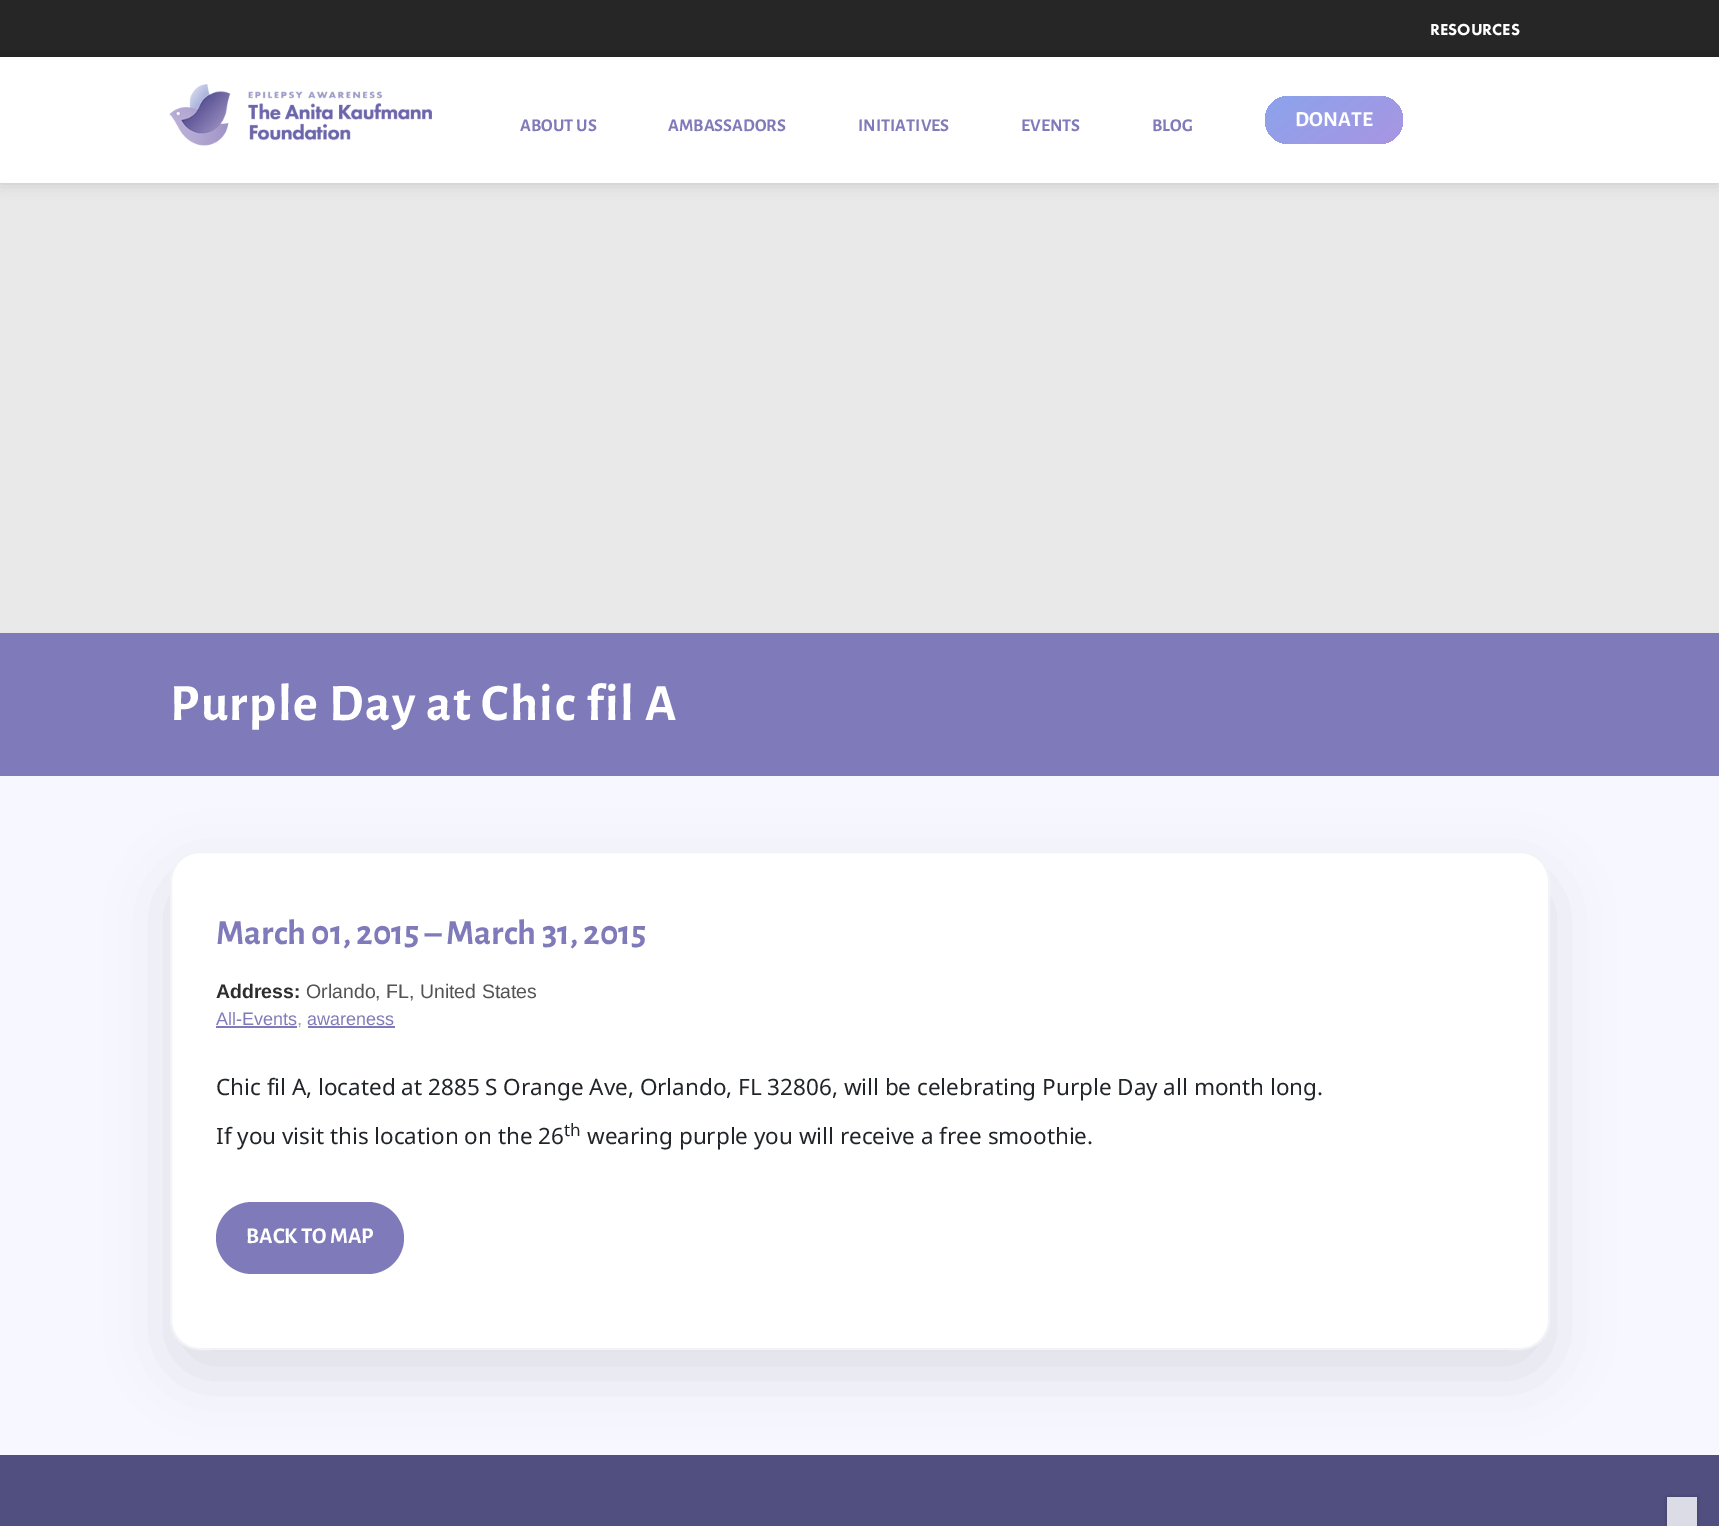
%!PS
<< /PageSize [1719 1526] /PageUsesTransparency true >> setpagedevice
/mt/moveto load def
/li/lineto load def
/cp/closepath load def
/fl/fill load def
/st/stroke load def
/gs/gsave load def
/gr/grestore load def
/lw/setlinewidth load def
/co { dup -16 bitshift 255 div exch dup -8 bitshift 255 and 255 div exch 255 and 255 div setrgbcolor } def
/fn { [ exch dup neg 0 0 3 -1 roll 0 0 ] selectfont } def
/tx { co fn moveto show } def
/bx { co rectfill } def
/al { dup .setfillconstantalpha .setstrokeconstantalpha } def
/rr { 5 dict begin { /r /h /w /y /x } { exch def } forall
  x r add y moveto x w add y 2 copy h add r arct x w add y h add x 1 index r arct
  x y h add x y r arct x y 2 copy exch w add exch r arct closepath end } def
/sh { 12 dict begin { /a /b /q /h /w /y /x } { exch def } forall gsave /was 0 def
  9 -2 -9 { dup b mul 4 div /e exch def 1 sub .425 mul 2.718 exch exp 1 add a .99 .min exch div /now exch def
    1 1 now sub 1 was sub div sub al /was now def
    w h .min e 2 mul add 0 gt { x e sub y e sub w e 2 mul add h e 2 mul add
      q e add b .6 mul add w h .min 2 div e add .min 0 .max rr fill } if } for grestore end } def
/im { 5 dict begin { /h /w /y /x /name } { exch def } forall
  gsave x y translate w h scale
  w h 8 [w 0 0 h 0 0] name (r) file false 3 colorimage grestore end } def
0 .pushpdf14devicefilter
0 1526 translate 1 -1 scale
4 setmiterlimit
0 0 1719 1526 16#F7F7FF bx
0 0 1719 57 16#262626 bx
0 183 1719 450 16#E9E9E9 bx
16#000000 co
0 57 1719 126 0 7.5 .15 sh
0 57 1719 126 16#FFFFFF bx
(media/1.raw) 169 84 263 62 im
gs 1265 96 138 48 24 rr clip newpath
<< /ShadingType 2 /ColorSpace /DeviceRGB /Coords [1300 71 1367 169] /Extend [true true] /Function << /FunctionType 2 /Domain [0 1] /C0 [.545 .639 .925] /C1 [.663 .584 .886] /N 1 >> >> shfill gr
0 633 1719 143 16#7F7AB9 bx
0 1455 1719 71 16#504F80 bx
16#DBDDE6 co
170 875 1380 499 30 30 1 sh
16#FFFFFF co
171 852 1378 497 29 rr gs fl gr
16#F2F3F7 co
2 lw
st
216 1026 81 2 16#7F7AB9 bx
308 1026 87 2 16#7F7AB9 bx
216 1202 188 72 36 rr fl
gs
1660 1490 mt 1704 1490 li 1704 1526 li 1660 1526 li cp 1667 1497 mt 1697 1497 li 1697 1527 li 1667 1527 li cp eoclip newpath
16#000000 co
1667 1497 30 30 0 2 .2 sh
gr
0.8 al
1667 1497 30 29 16#FFFFFF bx
1 al
(RESOURCES) 1430 35 /FuturaPT-Black 16.5 16#FFFFFF tx
(ABOUT US) 520 131 /AlegreyaSans-Bold 18 16#7F7AB9 tx
(AMBASSADORS) 668 131 /AlegreyaSans-Bold 18 16#7F7AB9 tx
(INITIATIVES) 858 131 /AlegreyaSans-Bold 18 16#7F7AB9 tx
(EVENTS) 1021 131 /AlegreyaSans-Bold 18 16#7F7AB9 tx
(BLOG) 1152 131 /AlegreyaSans-Bold 18 16#7F7AB9 tx
(DONATE) 1295 126 /AlegreyaSans-Bold 21.5 16#FFFFFF tx
/AlegreyaSans-Bold 52.5 fn
170 720 mt 1.5 0 (Purple Day at Chic fil A) ashow
(March 01, 2015 – March 31, 2015) 216 944 /AlegreyaSans-Bold 35.4 16#7F7AB9 tx
(Address:) 216 998 /LiberationSans-Bold 19.5 16#2D2D2D tx
(Orlando, FL, United States) 306 998 /LiberationSans-Regular 19.5 16#545454 tx
(All-Events) 216 1025 /LiberationSans-Regular 18 16#7F7AB9 tx
(,) 297 1025 /LiberationSans-Regular 18 16#A2A2A2 tx
(awareness) 307 1025 /LiberationSans-Regular 18 16#7F7AB9 tx
(Chic fil A, located at 2885 S Orange Ave, Orlando, FL 32806, will be celebrating Purple Day all month long.) 216 1095 /NotoSans-Regular 22.5 16#212529 tx
(If you visit this location on the 26) 216 1144 /NotoSans-Regular 22.5 16#212529 tx
(th) 564 1136 /NotoSans-Regular 17 16#212529 tx
(wearing purple you will receive a free smoothie.) 587 1144 /NotoSans-Regular 22.5 16#212529 tx
(BACK TO MAP) 246 1243 /AlegreyaSans-Bold 22.5 16#FFFFFF tx
.poppdf14devicefilter showpage
